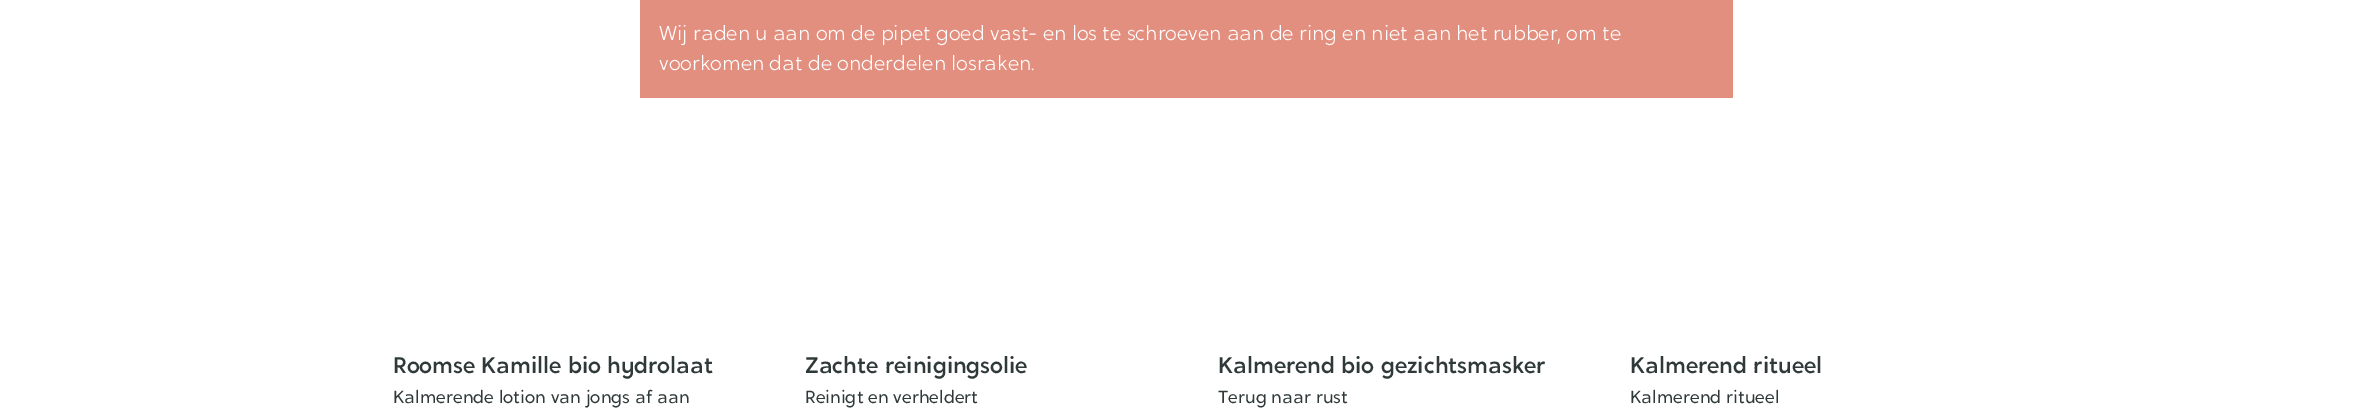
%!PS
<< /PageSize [2372 410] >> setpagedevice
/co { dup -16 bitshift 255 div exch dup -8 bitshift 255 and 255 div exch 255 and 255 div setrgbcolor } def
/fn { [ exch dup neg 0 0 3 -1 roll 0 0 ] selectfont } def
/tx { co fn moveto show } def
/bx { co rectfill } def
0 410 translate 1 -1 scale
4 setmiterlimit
0 0 2372 410 16#FFFFFF bx
640 0 1093 98 16#E38F7F bx
(Wij raden u aan om de pipet goed vast- en los te schroeven aan de ring en niet aan het rubber, om te) 659 40 /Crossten-Light 20 16#FFFFFF tx
(voorkomen dat de onderdelen losraken.) 659 70 /Crossten-Light 20 16#FFFFFF tx
(Roomse Kamille bio hydrolaat) 393 373 /Crossten-Medium 22.5 16#303939 tx
(Kalmerende lotion van jongs af aan) 393 403 /Crossten-Regular 17.5 16#303939 tx
(Zachte reinigingsolie) 805 373 /Crossten-Medium 22.5 16#303939 tx
(Reinigt en verheldert) 805 403 /Crossten-Regular 17.5 16#303939 tx
(Kalmerend bio gezichtsmasker) 1218 373 /Crossten-Medium 22.5 16#303939 tx
(Terug naar rust) 1218 403 /Crossten-Regular 17.5 16#303939 tx
(Kalmerend ritueel) 1630 373 /Crossten-Medium 22.5 16#303939 tx
(Kalmerend ritueel) 1630 403 /Crossten-Regular 17.5 16#303939 tx
showpage
